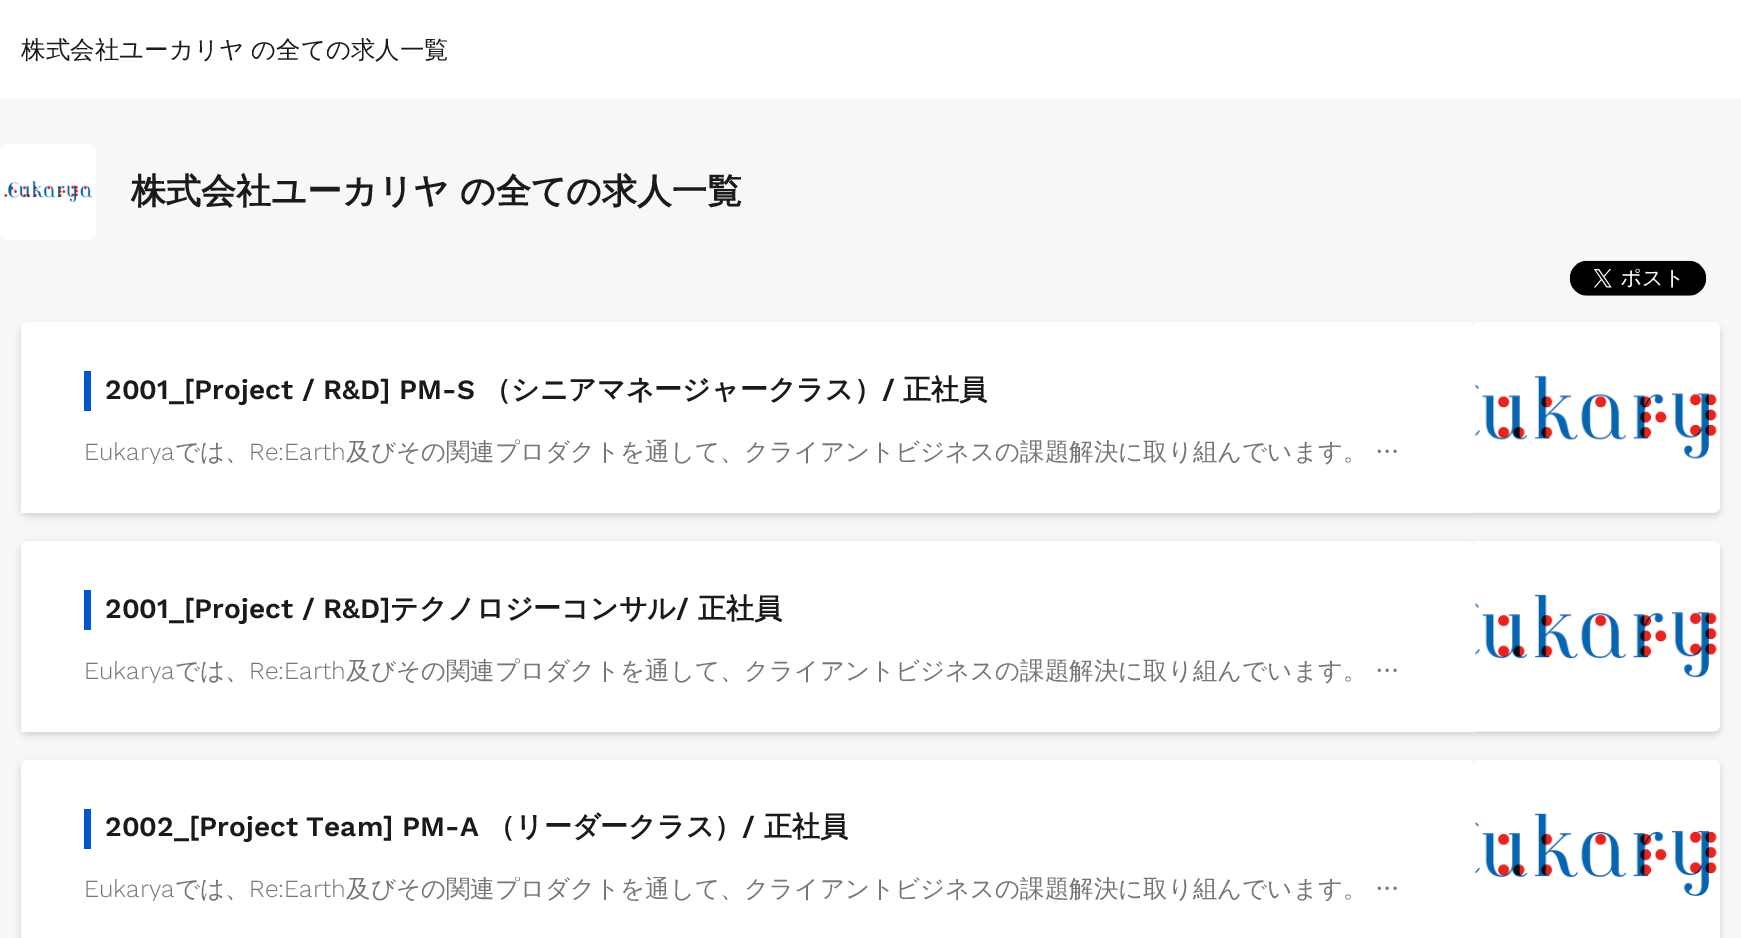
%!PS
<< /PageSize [1741 938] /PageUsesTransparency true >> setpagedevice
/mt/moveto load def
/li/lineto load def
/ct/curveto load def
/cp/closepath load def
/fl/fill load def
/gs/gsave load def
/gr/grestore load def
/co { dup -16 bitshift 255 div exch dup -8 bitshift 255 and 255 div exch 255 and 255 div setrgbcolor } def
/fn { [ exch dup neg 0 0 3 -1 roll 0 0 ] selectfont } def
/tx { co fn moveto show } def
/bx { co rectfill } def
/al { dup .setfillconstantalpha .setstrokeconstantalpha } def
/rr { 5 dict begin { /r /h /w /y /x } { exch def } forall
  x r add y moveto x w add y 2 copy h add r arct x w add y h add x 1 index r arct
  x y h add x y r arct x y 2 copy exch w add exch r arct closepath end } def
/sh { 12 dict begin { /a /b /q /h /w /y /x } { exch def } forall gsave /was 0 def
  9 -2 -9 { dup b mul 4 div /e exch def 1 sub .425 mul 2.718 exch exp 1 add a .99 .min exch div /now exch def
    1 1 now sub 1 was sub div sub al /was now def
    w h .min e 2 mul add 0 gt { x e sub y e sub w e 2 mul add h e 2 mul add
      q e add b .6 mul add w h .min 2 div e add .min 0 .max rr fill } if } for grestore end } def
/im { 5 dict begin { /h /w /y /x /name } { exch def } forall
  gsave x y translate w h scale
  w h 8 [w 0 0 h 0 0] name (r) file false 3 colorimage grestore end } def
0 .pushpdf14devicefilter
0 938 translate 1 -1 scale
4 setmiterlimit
0 0 1741 938 16#F7F7F7 bx
0 0 1741 98 16#FFFFFF bx
(media/1.raw) 0 144 96 96 im
(media/2.raw) 1569 260 138 36 im
gs
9 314 mt 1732 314 li 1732 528 li 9 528 li cp 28 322 mt 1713 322 li 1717 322 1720 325 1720 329 ct 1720 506 li 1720 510 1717 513 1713 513 ct 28 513 li 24 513 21 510 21 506 ct 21 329 li 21 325 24 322 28 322 ct cp eoclip newpath
16#000000 co
21 326 1699 190 7 3.5 .15 sh
gr
28 322 mt 1468 322 li 1472 322 1475 325 1475 329 ct 1475 513 li 21 513 li 21 329 li 21 325 24 322 28 322 ct cp fl
84 371 7 40 16#0056CF bx
(media/3.raw) 1475 322 245 191 im
gs
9 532 mt 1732 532 li 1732 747 li 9 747 li cp 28 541 mt 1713 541 li 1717 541 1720 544 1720 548 ct 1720 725 li 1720 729 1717 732 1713 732 ct 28 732 li 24 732 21 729 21 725 ct 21 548 li 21 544 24 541 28 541 ct cp eoclip newpath
16#000000 co
21 544 1699 191 7 3.5 .15 sh
gr
16#FFFFFF co
28 541 mt 1468 541 li 1472 541 1475 544 1475 548 ct 1475 732 li 21 732 li 21 548 li 21 544 24 541 28 541 ct cp fl
84 590 7 40 16#0056CF bx
(media/4.raw) 1475 541 245 191 im
gs
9 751 mt 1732 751 li 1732 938 li 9 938 li cp 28 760 mt 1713 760 li 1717 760 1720 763 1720 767 ct 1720 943 li 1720 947 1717 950 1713 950 ct 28 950 li 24 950 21 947 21 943 ct 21 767 li 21 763 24 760 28 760 ct cp eoclip newpath
16#000000 co
21 763 1699 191 7 3.5 .15 sh
gr
16#FFFFFF co
28 760 mt 1468 760 li 1472 760 1475 763 1475 767 ct 1475 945 li 21 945 li 21 767 li 21 763 24 760 28 760 ct cp fl
84 809 7 40 16#0056CF bx
(media/5.raw) 1475 760 245 178 im
(株式会社ユーカリヤ の全ての求人一覧) 21 58 /WenQuanYiZenHei-Medium 24.5 16#1A1A1A tx
(株式会社ユーカリヤ の全ての求人一覧) 131 203 /WenQuanYiZenHei-Bold 35 16#1A1A1A tx
(2001_[Project / R&D] PM-S) 105 399 /WorkSans-SemiBold 28 16#1A1A1A tx
(（シニアマネージャークラス）) 483 399 /WenQuanYiZenHei-Bold 28 16#1A1A1A tx
(/) 882 399 /WorkSans-SemiBold 28 16#1A1A1A tx
(正社員) 903 399 /WenQuanYiZenHei-Bold 28 16#1A1A1A tx
gs
84 439 1328 25 rectclip
(Eukarya) 84 460 /WorkSans-Light 24.5 16#767676 tx
gr
(では、) 175 460 /WenQuanYiZenHei-Medium 24.5 16#767676 tx
(Re:Earth) 249 460 /WorkSans-Light 24.5 16#767676 tx
(及びその関連プロダクトを通して、クライアントビジネスの課題解決に取り組んでいます。) 346 460 /WenQuanYiZenHei-Medium 24.5 16#767676 tx
(…) 1375 460 /WenQuanYiZenHei-Medium 24.5 16#767676 tx
(2001_[Project / R&D]) 105 618 /WorkSans-SemiBold 28 16#1A1A1A tx
(テクノロジーコンサル) 390 618 /WenQuanYiZenHei-Bold 28 16#1A1A1A tx
(/) 676 618 /WorkSans-SemiBold 28 16#1A1A1A tx
(正社員) 698 618 /WenQuanYiZenHei-Bold 28 16#1A1A1A tx
gs
84 658 1328 25 rectclip
(Eukarya) 84 679 /WorkSans-Light 24.5 16#767676 tx
gr
(では、) 175 679 /WenQuanYiZenHei-Medium 24.5 16#767676 tx
(Re:Earth) 249 679 /WorkSans-Light 24.5 16#767676 tx
(及びその関連プロダクトを通して、クライアントビジネスの課題解決に取り組んでいます。) 346 679 /WenQuanYiZenHei-Medium 24.5 16#767676 tx
(…) 1375 679 /WenQuanYiZenHei-Medium 24.5 16#767676 tx
(2002_[Project Team] PM-A) 105 836 /WorkSans-SemiBold 28 16#1A1A1A tx
(（リーダークラス）) 487 836 /WenQuanYiZenHei-Bold 28 16#1A1A1A tx
(/) 742 836 /WorkSans-SemiBold 28 16#1A1A1A tx
(正社員) 764 836 /WenQuanYiZenHei-Bold 28 16#1A1A1A tx
gs
84 877 1328 24 rectclip
(Eukarya) 84 897 /WorkSans-Light 24.5 16#767676 tx
gr
(では、) 175 897 /WenQuanYiZenHei-Medium 24.5 16#767676 tx
(Re:Earth) 249 897 /WorkSans-Light 24.5 16#767676 tx
gs
84 877 1328 24 rectclip
(及びその関連プロダクトを通して、クライアントビジネスの課題解決に取り組んでいます。) 346 897 /WenQuanYiZenHei-Medium 24.5 16#767676 tx
gr
(…) 1375 897 /WenQuanYiZenHei-Medium 24.5 16#767676 tx
.poppdf14devicefilter showpage
